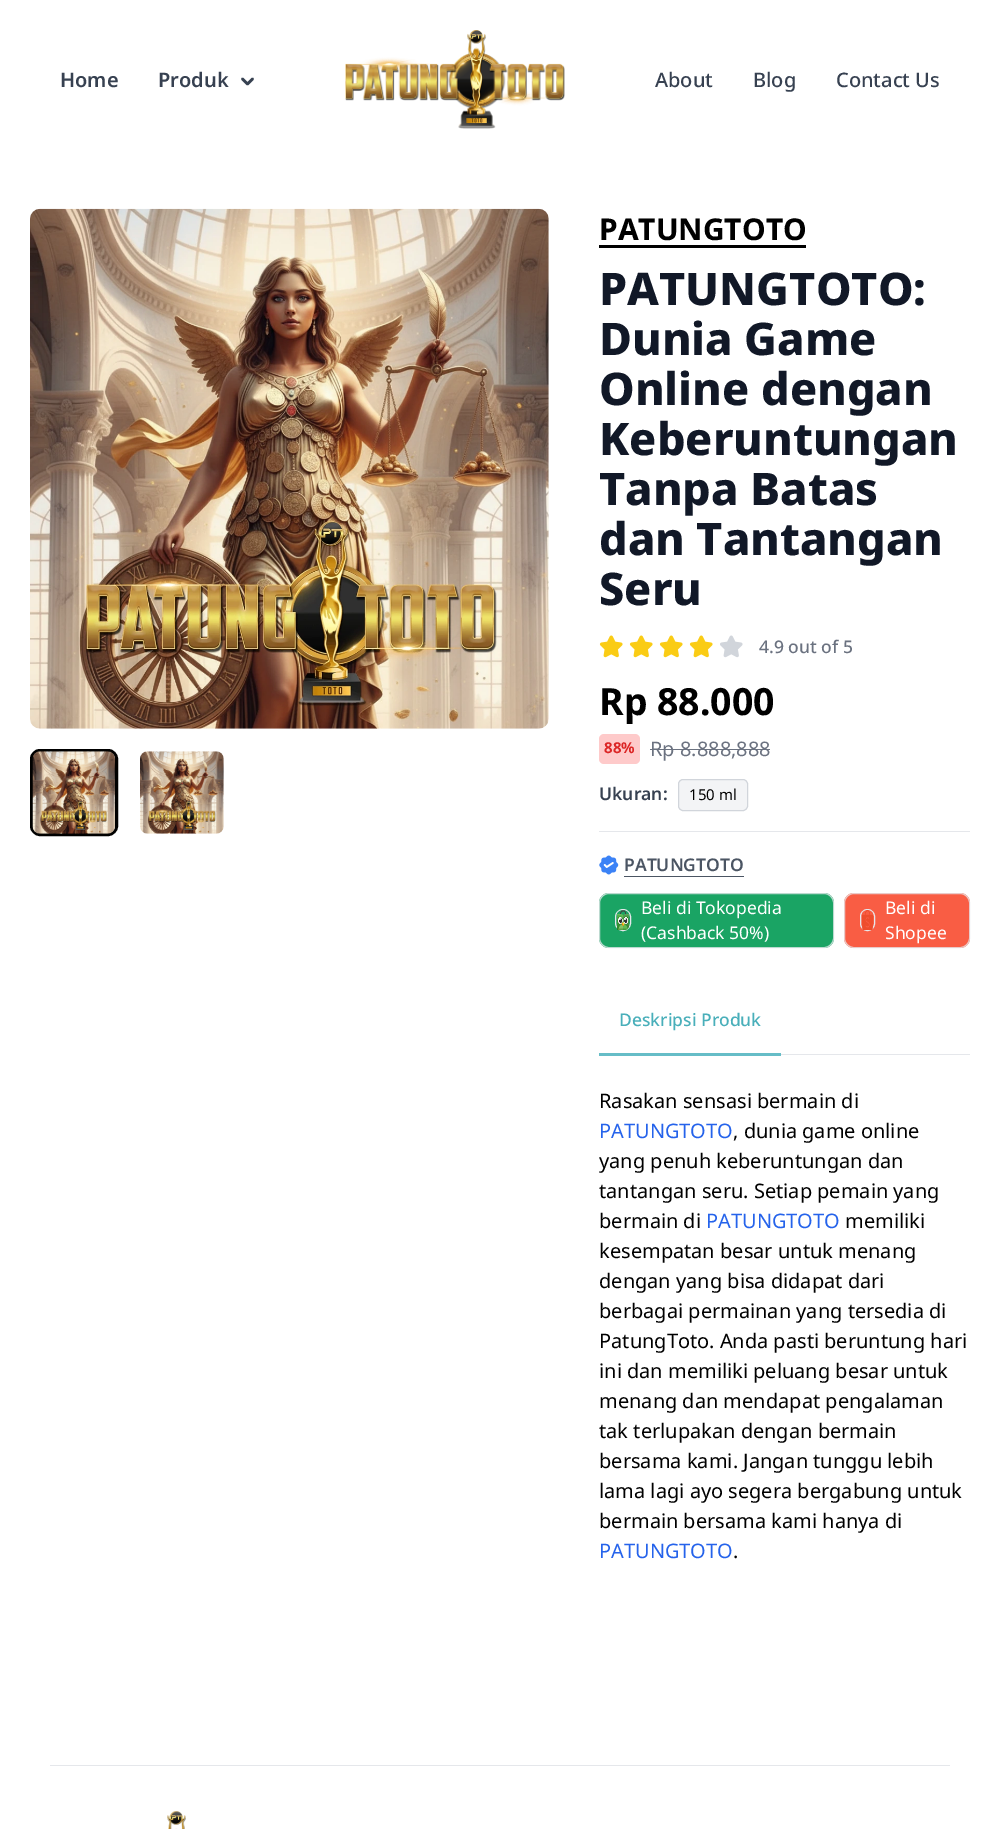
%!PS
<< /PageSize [1000 1829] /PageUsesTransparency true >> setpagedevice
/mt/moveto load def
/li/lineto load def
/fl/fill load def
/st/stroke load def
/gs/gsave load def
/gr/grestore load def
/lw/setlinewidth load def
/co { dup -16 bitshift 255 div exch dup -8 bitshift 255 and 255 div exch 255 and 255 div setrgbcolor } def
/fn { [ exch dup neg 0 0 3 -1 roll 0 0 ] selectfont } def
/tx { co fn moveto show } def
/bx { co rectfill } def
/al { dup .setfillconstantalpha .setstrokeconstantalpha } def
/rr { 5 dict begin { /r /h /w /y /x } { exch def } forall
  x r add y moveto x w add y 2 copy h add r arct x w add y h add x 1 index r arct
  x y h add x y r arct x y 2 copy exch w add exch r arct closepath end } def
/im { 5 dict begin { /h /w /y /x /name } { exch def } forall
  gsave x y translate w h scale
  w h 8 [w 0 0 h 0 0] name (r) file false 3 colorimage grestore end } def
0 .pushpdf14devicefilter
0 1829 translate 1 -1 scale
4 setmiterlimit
0 0 1000 1829 16#FFFFFF bx
16#374151 co
2.5 lw
1 setlinecap
1 setlinejoin
242.5 79 mt 247.5 84 li 252.5 79 li st
(media/1.raw) 345 30 220 99 im
(media/2.raw) 30 208 519 521 im
16#000000 co
3 lw
0 setlinecap
0 setlinejoin
31.5 750.5 85 84 8.5 rr st
(media/3.raw) 32 751 83 83 im
(media/4.raw) 140 751 84 83 im
599 245 207 3 16#000000 bx
(media/5.raw) 599 635 24 23 im
(media/5.raw) 629 635 24 23 im
(media/5.raw) 659 635 24 23 im
(media/5.raw) 689 635 24 23 im
(media/6.raw) 720 635 23 23 im
16#FECACA co
599 734 41 30 5 rr fl
650 749 120 1 16#6B7280 bx
16#F3F4F6 co
678.5 779.5 69 31 4.5 rr gs fl gr
16#D1D5DB co
1 lw
st
599 831 371 1 16#E5E7EB bx
(media/7.raw) 599 855 20 20 im
624 876 120 1 16#4B5563 bx
16#1AA464 co
599 893 235 55 10 rr fl
0.8 al
16#E5E7EB co
599.5 893.5 234 54 9.5 rr st
1 al
615.5 909.5 15 21 7.5 rr st
(media/8.raw) 617 910 12 20 im
16#F95D44 co
844 893 126 55 10 rr fl
0.8 al
16#E5E7EB co
844.5 893.5 125 54 9.5 rr st
1 al
860.5 909.5 14 21 7 rr st
(media/9.raw) 862 910 11 20 im
781 1054 189 1 16#E5E7EB bx
599 1053 182 3 16#66BDC7 bx
50 1765 900 1 16#E5E7EB bx
(media/10.raw) 167 1811 19 18 im
(Home) 60 87 /NotoSans-SemiBold 20 16#374151 tx
(Produk) 158 87 /NotoSans-SemiBold 20 16#374151 tx
(About) 655 87 /NotoSans-Medium 20 16#374151 tx
(Blog) 753 87 /NotoSans-Medium 20 16#374151 tx
(Contact Us) 836 87 /NotoSans-Medium 20 16#374151 tx
(PATUNGTOTO) 599 240 /NotoSans-Bold 30 16#000000 tx
(PATUNGTOTO:) 599 305 /NotoSans-ExtraBold 45 16#111827 tx
(Dunia Game) 599 355 /NotoSans-ExtraBold 45 16#111827 tx
(Online dengan) 599 405 /NotoSans-ExtraBold 45 16#111827 tx
(Keberuntungan) 599 455 /NotoSans-ExtraBold 45 16#111827 tx
(Tanpa Batas) 599 505 /NotoSans-ExtraBold 45 16#111827 tx
(dan Tantangan) 599 555 /NotoSans-ExtraBold 45 16#111827 tx
(Seru) 599 605 /NotoSans-ExtraBold 45 16#111827 tx
(4.9 out of 5) 759 653 /NotoSans-Medium 17.5 16#6B7280 tx
(Rp 88.000) 599 715 /NotoSans-Bold 37.5 16#000000 tx
(88%) 604 753 /NotoSans-Bold 15 16#DC2626 tx
(Rp 8.888,888) 650 756 /NotoSans-Regular 20 16#6B7280 tx
(Ukuran:) 599 800 /NotoSans-SemiBold 17.5 16#374151 tx
(150 ml) 689 800 /NotoSans-Regular 15 16#000000 tx
(PATUNGTOTO) 624 871 /NotoSans-SemiBold 17.5 16#4B5563 tx
(Beli di Tokopedia) 641 914 /NotoSans-Regular 17.5 16#FFFFFF tx
(\(Cashback 50%\)) 641 939 /NotoSans-Regular 17.5 16#FFFFFF tx
(Beli di) 885 914 /NotoSans-Regular 17.5 16#FFFFFF tx
(Shopee) 885 939 /NotoSans-Regular 17.5 16#FFFFFF tx
(Deskripsi Produk) 619 1026 /NotoSans-Medium 17.5 16#49AFBA tx
(Rasakan sensasi bermain di) 599 1108 /NotoSans-Regular 20 16#000000 tx
(PATUNGTOTO) 599 1138 /NotoSans-Regular 20 16#2563EB tx
(, dunia game online) 733 1138 /NotoSans-Regular 20 16#000000 tx
(yang penuh keberuntungan dan) 599 1168 /NotoSans-Regular 20 16#000000 tx
(tantangan seru. Setiap pemain yang) 599 1198 /NotoSans-Regular 20 16#000000 tx
(bermain di) 599 1228 /NotoSans-Regular 20 16#000000 tx
(PATUNGTOTO) 706 1228 /NotoSans-Regular 20 16#2563EB tx
(memiliki) 845 1228 /NotoSans-Regular 20 16#000000 tx
(kesempatan besar untuk menang) 599 1258 /NotoSans-Regular 20 16#000000 tx
(dengan yang bisa didapat dari) 599 1288 /NotoSans-Regular 20 16#000000 tx
(berbagai permainan yang tersedia di) 599 1318 /NotoSans-Regular 20 16#000000 tx
(PatungToto. Anda pasti beruntung hari) 599 1348 /NotoSans-Regular 20 16#000000 tx
(ini dan memiliki peluang besar untuk) 599 1378 /NotoSans-Regular 20 16#000000 tx
(menang dan mendapat pengalaman) 599 1408 /NotoSans-Regular 20 16#000000 tx
(tak terlupakan dengan bermain) 599 1438 /NotoSans-Regular 20 16#000000 tx
(bersama kami. Jangan tunggu lebih) 599 1468 /NotoSans-Regular 20 16#000000 tx
(lama lagi ayo segera bergabung untuk) 599 1498 /NotoSans-Regular 20 16#000000 tx
(bermain bersama kami hanya di) 599 1528 /NotoSans-Regular 20 16#000000 tx
(PATUNGTOTO) 599 1558 /NotoSans-Regular 20 16#2563EB tx
(.) 733 1558 /NotoSans-Regular 20 16#000000 tx
.poppdf14devicefilter showpage
